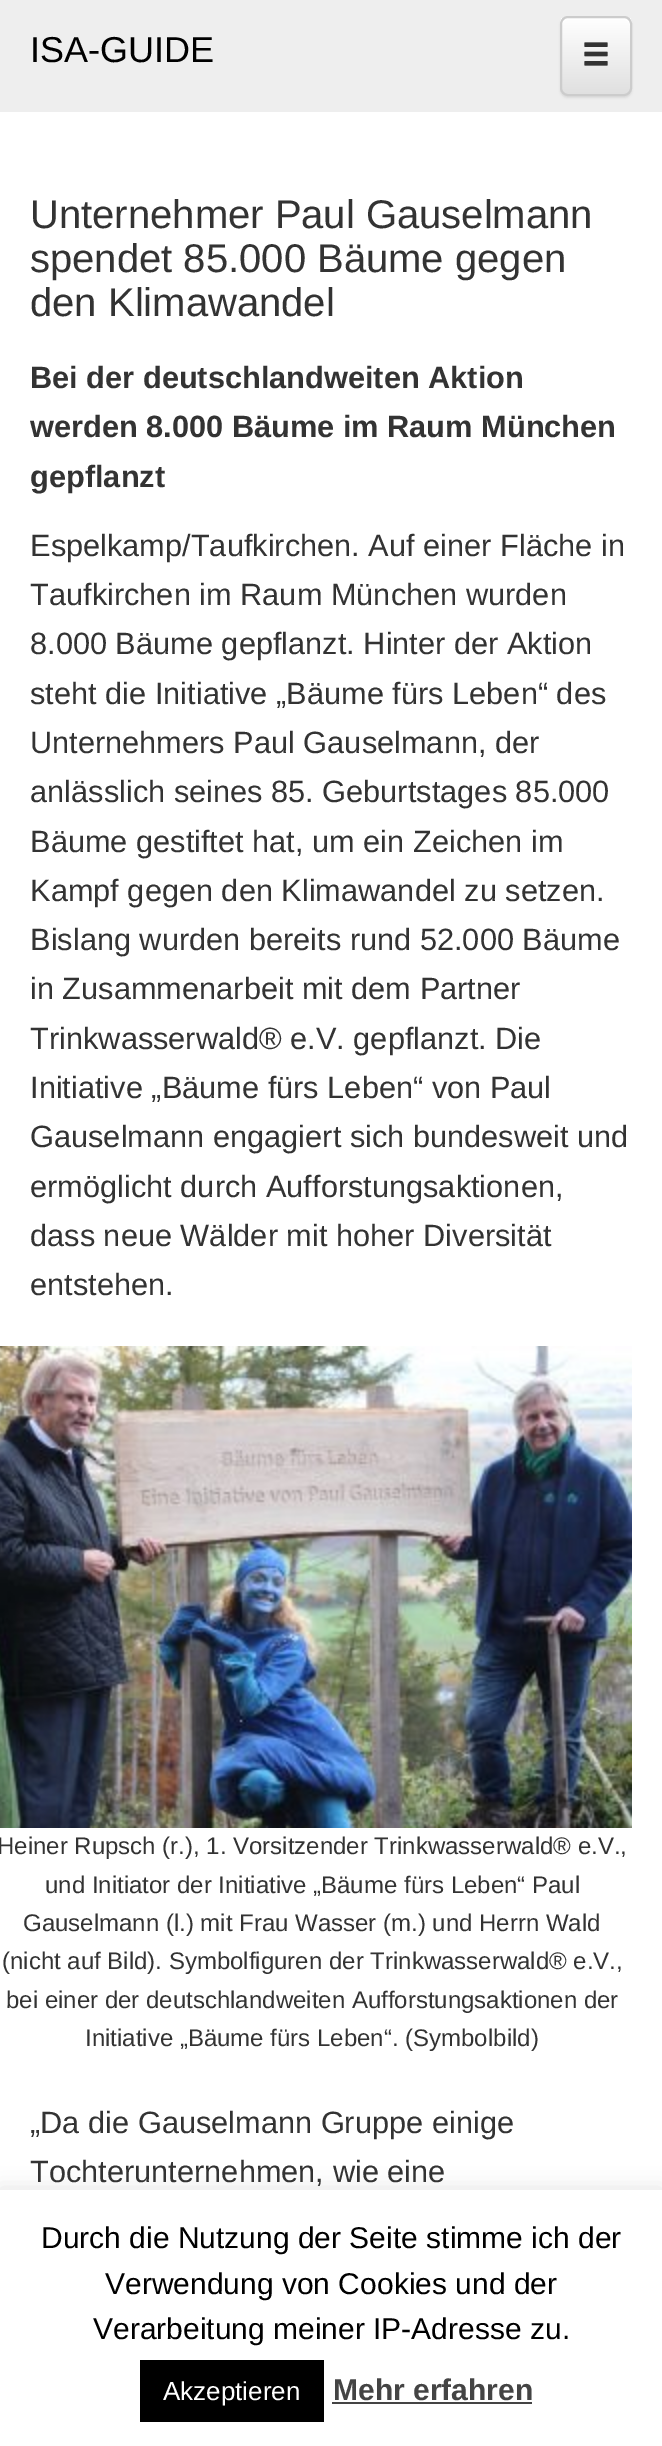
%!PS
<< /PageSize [662 2446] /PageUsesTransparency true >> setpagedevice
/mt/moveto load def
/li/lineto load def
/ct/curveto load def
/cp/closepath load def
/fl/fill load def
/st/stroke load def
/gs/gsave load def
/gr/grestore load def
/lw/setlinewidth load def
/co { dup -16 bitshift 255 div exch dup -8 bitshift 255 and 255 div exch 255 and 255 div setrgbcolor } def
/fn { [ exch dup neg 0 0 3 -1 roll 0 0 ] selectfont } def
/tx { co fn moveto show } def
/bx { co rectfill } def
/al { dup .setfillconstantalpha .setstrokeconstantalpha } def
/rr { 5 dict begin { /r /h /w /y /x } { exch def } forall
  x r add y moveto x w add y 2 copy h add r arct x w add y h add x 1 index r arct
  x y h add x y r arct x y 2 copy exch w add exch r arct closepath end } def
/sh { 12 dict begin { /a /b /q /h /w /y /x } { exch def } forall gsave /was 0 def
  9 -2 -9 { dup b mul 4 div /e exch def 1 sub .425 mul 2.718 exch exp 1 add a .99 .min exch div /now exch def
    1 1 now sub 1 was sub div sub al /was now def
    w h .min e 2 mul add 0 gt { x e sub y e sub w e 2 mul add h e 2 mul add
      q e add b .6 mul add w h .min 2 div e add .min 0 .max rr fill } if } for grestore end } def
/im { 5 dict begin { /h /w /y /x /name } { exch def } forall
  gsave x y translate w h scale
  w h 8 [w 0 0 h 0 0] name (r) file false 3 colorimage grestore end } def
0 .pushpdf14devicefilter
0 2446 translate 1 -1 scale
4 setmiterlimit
0 0 662 2446 16#FFFFFF bx
0 0 662 112 16#EEEEEE bx
16#000000 co
560 18 72 80 8 1 .07 sh
gs
560 16 72 80 8 rr clip newpath
gs 560 18 mt 632 18 li 632 94 li 560 94 li cp clip newpath
<< /ShadingType 2 /ColorSpace /DeviceRGB /Coords [596 18 596 94] /Extend [true true] /Function << /FunctionType 2 /Domain [0 1] /C0 [1 1 1] /C1 [.878 .878 .878] /N 1 >> >> shfill gr
gr
16#FFFFFF co
568 20 mt 624 20 li 627 20 630 23 630 26 ct 630 16 623 18 615 18 ct 577 18 li 569 18 562 16 562 26 ct 562 23 565 20 568 20 ct cp fl
16#CCCCCC co
2 lw
561 17 70 78 7 rr st
(media/1.raw) 584 42 24 24 im
(media/2.raw) 0 1346 632 482 im
16#ACABAB co
0 2188 662 256 0 10 .3 sh
0 2190 662 256 16#FFFFFF bx
140 2360 184 62 16#000000 bx
332 2402 200 2 16#444444 bx
(ISA-GUIDE) 30 62 /LiberationSans-Regular 36 16#000000 tx
(Unternehmer Paul Gauselmann) 30 228 /LiberationSans-Regular 40 16#333333 tx
(spendet 85.000 Bäume gegen) 30 272 /LiberationSans-Regular 40 16#333333 tx
(den Klimawandel) 30 316 /LiberationSans-Regular 40 16#333333 tx
(Bei der deutschlandweiten Aktion) 30 388 /LiberationSans-Bold 30.75 16#333333 tx
(werden 8.000 Bäume im Raum München) 30 437 /LiberationSans-Bold 30.75 16#333333 tx
(gepflanzt) 30 487 /LiberationSans-Bold 30.75 16#333333 tx
(Espelkamp/Taufkirchen. Auf einer Fläche in) 30 556 /LiberationSans-Regular 30.75 16#333333 tx
(Taufkirchen im Raum München wurden) 30 605 /LiberationSans-Regular 30.75 16#333333 tx
(8.000 Bäume gepflanzt. Hinter der Aktion) 30 654 /LiberationSans-Regular 30.75 16#333333 tx
(steht die Initiative „Bäume fürs Leben“ des) 30 704 /LiberationSans-Regular 30.75 16#333333 tx
(Unternehmers Paul Gauselmann, der) 30 753 /LiberationSans-Regular 30.75 16#333333 tx
(anlässlich seines 85. Geburtstages 85.000) 30 802 /LiberationSans-Regular 30.75 16#333333 tx
(Bäume gestiftet hat, um ein Zeichen im) 30 852 /LiberationSans-Regular 30.75 16#333333 tx
(Kampf gegen den Klimawandel zu setzen.) 30 901 /LiberationSans-Regular 30.75 16#333333 tx
(Bislang wurden bereits rund 52.000 Bäume) 30 950 /LiberationSans-Regular 30.75 16#333333 tx
(in Zusammenarbeit mit dem Partner) 30 999 /LiberationSans-Regular 30.75 16#333333 tx
(Trinkwasserwald® e.V. gepflanzt. Die) 30 1049 /LiberationSans-Regular 30.75 16#333333 tx
(Initiative „Bäume fürs Leben“ von Paul) 30 1098 /LiberationSans-Regular 30.75 16#333333 tx
(Gauselmann engagiert sich bundesweit und) 30 1147 /LiberationSans-Regular 30.75 16#333333 tx
(ermöglicht durch Aufforstungsaktionen,) 30 1197 /LiberationSans-Regular 30.75 16#333333 tx
(dass neue Wälder mit hoher Diversität) 30 1246 /LiberationSans-Regular 30.75 16#333333 tx
(entstehen.) 30 1295 /LiberationSans-Regular 30.75 16#333333 tx
(Heiner Rupsch \(r.\), 1. Vorsitzender Trinkwasserwald® e.V.,) -3 1854 /LiberationSans-Regular 24 16#333333 tx
(und Initiator der Initiative „Bäume fürs Leben“ Paul) 45 1893 /LiberationSans-Regular 24 16#333333 tx
(Gauselmann \(l.\) mit Frau Wasser \(m.\) und Herrn Wald) 23 1931 /LiberationSans-Regular 24 16#333333 tx
(\(nicht auf Bild\). Symbolfiguren der Trinkwasserwald® e.V.,) 2 1969 /LiberationSans-Regular 24 16#333333 tx
(bei einer der deutschlandweiten Aufforstungsaktionen der) 6 2008 /LiberationSans-Regular 24 16#333333 tx
(Initiative „Bäume fürs Leben“. \(Symbolbild\)) 85 2046 /LiberationSans-Regular 24 16#333333 tx
(„Da die Gauselmann Gruppe einige) 30 2133 /LiberationSans-Regular 30.75 16#333333 tx
(Tochterunternehmen, wie eine) 30 2182 /LiberationSans-Regular 30.75 16#333333 tx
(Durch die Nutzung der Seite stimme ich der) 41 2248 /LiberationSans-Regular 30 16#000000 tx
(Verwendung von Cookies und der) 105 2294 /LiberationSans-Regular 30 16#000000 tx
(Verarbeitung meiner IP-Adresse zu.) 93 2339 /LiberationSans-Regular 30 16#000000 tx
(Akzeptieren) 163 2400 /LiberationSans-Regular 26 16#FFFFFF tx
(Mehr erfahren) 333 2400 /LiberationSans-Bold 30 16#444444 tx
.poppdf14devicefilter showpage
